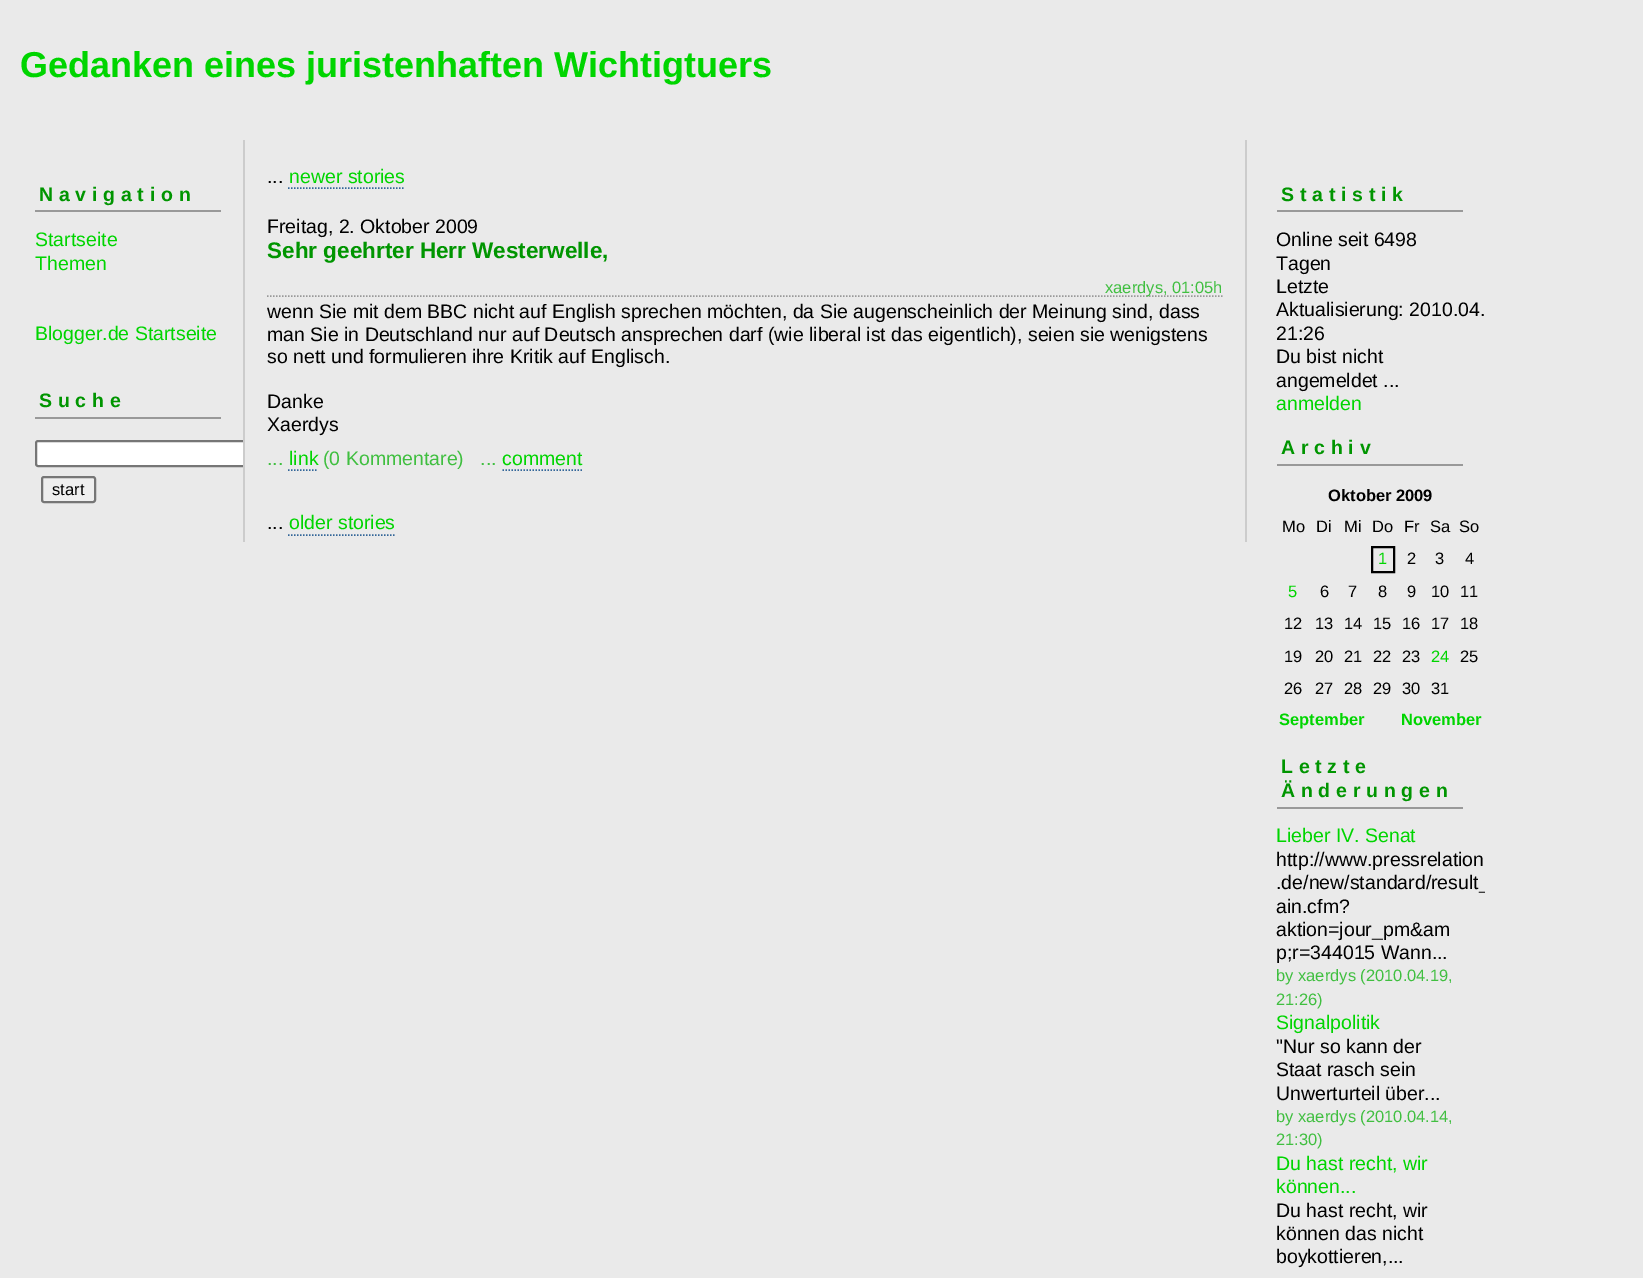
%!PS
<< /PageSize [1643 1278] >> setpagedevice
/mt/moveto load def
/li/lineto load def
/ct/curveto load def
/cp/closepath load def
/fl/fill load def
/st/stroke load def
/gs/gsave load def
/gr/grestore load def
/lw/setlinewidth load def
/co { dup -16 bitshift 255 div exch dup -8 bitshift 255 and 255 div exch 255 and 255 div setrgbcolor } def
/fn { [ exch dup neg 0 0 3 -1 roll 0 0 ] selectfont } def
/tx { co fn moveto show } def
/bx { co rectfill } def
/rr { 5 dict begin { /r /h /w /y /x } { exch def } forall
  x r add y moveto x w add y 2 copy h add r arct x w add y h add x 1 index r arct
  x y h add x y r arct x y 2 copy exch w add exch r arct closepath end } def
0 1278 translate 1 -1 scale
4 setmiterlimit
0 0 1643 1278 16#EAEAEA bx
35 210 186 2 16#999999 bx
35 417 186 2 16#999999 bx
16#FFFFFF co
38 440 mt 243 440 li 243 467 li 38 467 li 36.5 467 35 465.5 35 464 ct 35 443 li 35 441.5 36.5 440 38 440 ct cp fl
gs
12 140 231 390 rectclip
16#767676 co
2 lw
36 441 223 25 2 rr st
gr
16#EFEFEF co
42 477 53 25 2 rr gs fl gr
16#767676 co
2 lw
st
1245 140 2 402 16#CCCCCC bx
243 140 2 402 16#CCCCCC bx
16#336699 co
1.5 lw
[1.5 1.5] 0 setdash
288 188 mt 405 188 li st
16#999999 co
267 296 mt 1222.5 296 li st
16#336699 co
288 470 mt 318 470 li st
502.5 470 mt 582 470 li st
288 535 mt 394.5 535 li st
1277 210 186 2 16#999999 bx
1277 464 186 2 16#999999 bx
16#000000 co
2 lw
[] 0 setdash
1372 547 22 25 rectstroke
1277 807 186 2 16#999999 bx
(Gedanken eines juristenhaften Wichtigtuers) 20 77 /LiberationSans-Bold 36 16#00D500 tx
/LiberationSans-Bold 19.5 fn
16#009500 co
39 201 mt 5.75 0 (Navigation) ashow
(Startseite) 35 246 /LiberationSans-Regular 19.5 16#00D500 tx
(Themen) 35 270 /LiberationSans-Regular 19.5 16#00D500 tx
(Blogger.de Startseite) 35 340 /LiberationSans-Regular 19.5 16#00D500 tx
/LiberationSans-Bold 19.5 fn
16#009500 co
39 407 mt 5.75 0 (Suche) ashow
(start) 52 495 /LiberationSans-Regular 16.5 16#000000 tx
(...) 267 183 /LiberationSans-Regular 19.5 16#000000 tx
(newer stories) 289 183 /LiberationSans-Regular 19.5 16#00D500 tx
(Freitag, 2. Oktober 2009) 267 233 /LiberationSans-Regular 19.5 16#000000 tx
(Sehr geehrter Herr Westerwelle,) 267 258 /LiberationSans-Bold 22.5 16#009500 tx
(xaerdys, 01:05h) 1105 293 /LiberationSans-Regular 16.5 16#40BF40 tx
(wenn Sie mit dem BBC nicht auf English sprechen möchten, da Sie augenscheinlich der Meinung sind, dass) 267 318 /LiberationSans-Regular 19.5 16#000000 tx
(man Sie in Deutschland nur auf Deutsch ansprechen darf \(wie liberal ist das eigentlich\), seien sie wenigstens) 267 341 /LiberationSans-Regular 19.5 16#000000 tx
(so nett und formulieren ihre Kritik auf Englisch.) 267 363 /LiberationSans-Regular 19.5 16#000000 tx
(Danke) 267 408 /LiberationSans-Regular 19.5 16#000000 tx
(Xaerdys) 267 431 /LiberationSans-Regular 19.5 16#000000 tx
(...) 267 465 /LiberationSans-Regular 19.5 16#40BF40 tx
(link) 289 465 /LiberationSans-Regular 19.5 16#00D500 tx
(\(0 Kommentare\)   ...) 323 465 /LiberationSans-Regular 19.5 16#40BF40 tx
(comment) 502 465 /LiberationSans-Regular 19.5 16#00D500 tx
(...) 267 529 /LiberationSans-Regular 19.5 16#000000 tx
(older stories) 289 529 /LiberationSans-Regular 19.5 16#00D500 tx
/LiberationSans-Bold 19.5 fn
16#009500 co
1281 201 mt 5.75 0 (Statistik) ashow
(Online seit 6498) 1276 246 /LiberationSans-Regular 19.5 16#000000 tx
(Tagen) 1276 270 /LiberationSans-Regular 19.5 16#000000 tx
(Letzte) 1276 293 /LiberationSans-Regular 19.5 16#000000 tx
(Aktualisierung: 2010.04.) 1276 316 /LiberationSans-Regular 19.5 16#000000 tx
(21:26) 1276 340 /LiberationSans-Regular 19.5 16#000000 tx
(Du bist nicht) 1276 363 /LiberationSans-Regular 19.5 16#000000 tx
(angemeldet ...) 1276 387 /LiberationSans-Regular 19.5 16#000000 tx
(anmelden) 1276 410 /LiberationSans-Regular 19.5 16#00D500 tx
/LiberationSans-Bold 19.5 fn
16#009500 co
1281 454 mt 5.75 0 (Archiv) ashow
(Oktober 2009) 1328 501 /LiberationSans-Bold 16.5 16#000000 tx
(Mo) 1282 532 /LiberationSans-Regular 16.5 16#000000 tx
(Di) 1316 532 /LiberationSans-Regular 16.5 16#000000 tx
(Mi) 1344 532 /LiberationSans-Regular 16.5 16#000000 tx
(Do) 1372 532 /LiberationSans-Regular 16.5 16#000000 tx
(Fr) 1404 532 /LiberationSans-Regular 16.5 16#000000 tx
(Sa) 1430 532 /LiberationSans-Regular 16.5 16#000000 tx
(So) 1459 532 /LiberationSans-Regular 16.5 16#000000 tx
(1) 1378 564 /LiberationSans-Regular 16.5 16#00D500 tx
(2) 1407 564 /LiberationSans-Regular 16.5 16#000000 tx
(3) 1435 564 /LiberationSans-Regular 16.5 16#000000 tx
(4) 1465 564 /LiberationSans-Regular 16.5 16#000000 tx
(5) 1288 597 /LiberationSans-Regular 16.5 16#00D500 tx
(6) 1320 597 /LiberationSans-Regular 16.5 16#000000 tx
(7) 1348 597 /LiberationSans-Regular 16.5 16#000000 tx
(8) 1378 597 /LiberationSans-Regular 16.5 16#000000 tx
(9) 1407 597 /LiberationSans-Regular 16.5 16#000000 tx
(10) 1431 597 /LiberationSans-Regular 16.5 16#000000 tx
(11) 1460 597 /LiberationSans-Regular 16.5 16#000000 tx
(12) 1284 629 /LiberationSans-Regular 16.5 16#000000 tx
(13) 1315 629 /LiberationSans-Regular 16.5 16#000000 tx
(14) 1344 629 /LiberationSans-Regular 16.5 16#000000 tx
(15) 1373 629 /LiberationSans-Regular 16.5 16#000000 tx
(16) 1402 629 /LiberationSans-Regular 16.5 16#000000 tx
(17) 1431 629 /LiberationSans-Regular 16.5 16#000000 tx
(18) 1460 629 /LiberationSans-Regular 16.5 16#000000 tx
(19) 1284 662 /LiberationSans-Regular 16.5 16#000000 tx
(20) 1315 662 /LiberationSans-Regular 16.5 16#000000 tx
(21) 1344 662 /LiberationSans-Regular 16.5 16#000000 tx
(22) 1373 662 /LiberationSans-Regular 16.5 16#000000 tx
(23) 1402 662 /LiberationSans-Regular 16.5 16#000000 tx
(24) 1431 662 /LiberationSans-Regular 16.5 16#00D500 tx
(25) 1460 662 /LiberationSans-Regular 16.5 16#000000 tx
(26) 1284 694 /LiberationSans-Regular 16.5 16#000000 tx
(27) 1315 694 /LiberationSans-Regular 16.5 16#000000 tx
(28) 1344 694 /LiberationSans-Regular 16.5 16#000000 tx
(29) 1373 694 /LiberationSans-Regular 16.5 16#000000 tx
(30) 1402 694 /LiberationSans-Regular 16.5 16#000000 tx
(31) 1431 694 /LiberationSans-Regular 16.5 16#000000 tx
(September) 1279 725 /LiberationSans-Bold 16.5 16#00D500 tx
(November) 1401 725 /LiberationSans-Bold 16.5 16#00D500 tx
/LiberationSans-Bold 19.5 fn
16#009500 co
1281 773 mt 5.75 0 (Letzte) ashow
1281 797 mt 5.75 0 (Änderungen) ashow
(Lieber IV. Senat) 1276 842 /LiberationSans-Regular 19.5 16#00D500 tx
(http://www.pressrelation) 1276 866 /LiberationSans-Regular 19.5 16#000000 tx
gs
1247 140 238 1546 rectclip
(.de/new/standard/result_) 1276 889 /LiberationSans-Regular 19.5 16#000000 tx
gr
(ain.cfm?) 1276 913 /LiberationSans-Regular 19.5 16#000000 tx
(aktion=jour_pm&am) 1276 936 /LiberationSans-Regular 19.5 16#000000 tx
(p;r=344015 Wann...) 1276 959 /LiberationSans-Regular 19.5 16#000000 tx
(by xaerdys \(2010.04.19,) 1276 981 /LiberationSans-Regular 16.5 16#40BF40 tx
(21:26\)) 1276 1005 /LiberationSans-Regular 16.5 16#40BF40 tx
(Signalpolitik) 1276 1029 /LiberationSans-Regular 19.5 16#00D500 tx
("Nur so kann der) 1276 1053 /LiberationSans-Regular 19.5 16#000000 tx
(Staat rasch sein) 1276 1076 /LiberationSans-Regular 19.5 16#000000 tx
(Unwerturteil über...) 1276 1100 /LiberationSans-Regular 19.5 16#000000 tx
(by xaerdys \(2010.04.14,) 1276 1122 /LiberationSans-Regular 16.5 16#40BF40 tx
(21:30\)) 1276 1145 /LiberationSans-Regular 16.5 16#40BF40 tx
(Du hast recht, wir) 1276 1170 /LiberationSans-Regular 19.5 16#00D500 tx
(können...) 1276 1193 /LiberationSans-Regular 19.5 16#00D500 tx
(Du hast recht, wir) 1276 1217 /LiberationSans-Regular 19.5 16#000000 tx
(können das nicht) 1276 1240 /LiberationSans-Regular 19.5 16#000000 tx
(boykottieren,...) 1276 1263 /LiberationSans-Regular 19.5 16#000000 tx
showpage
